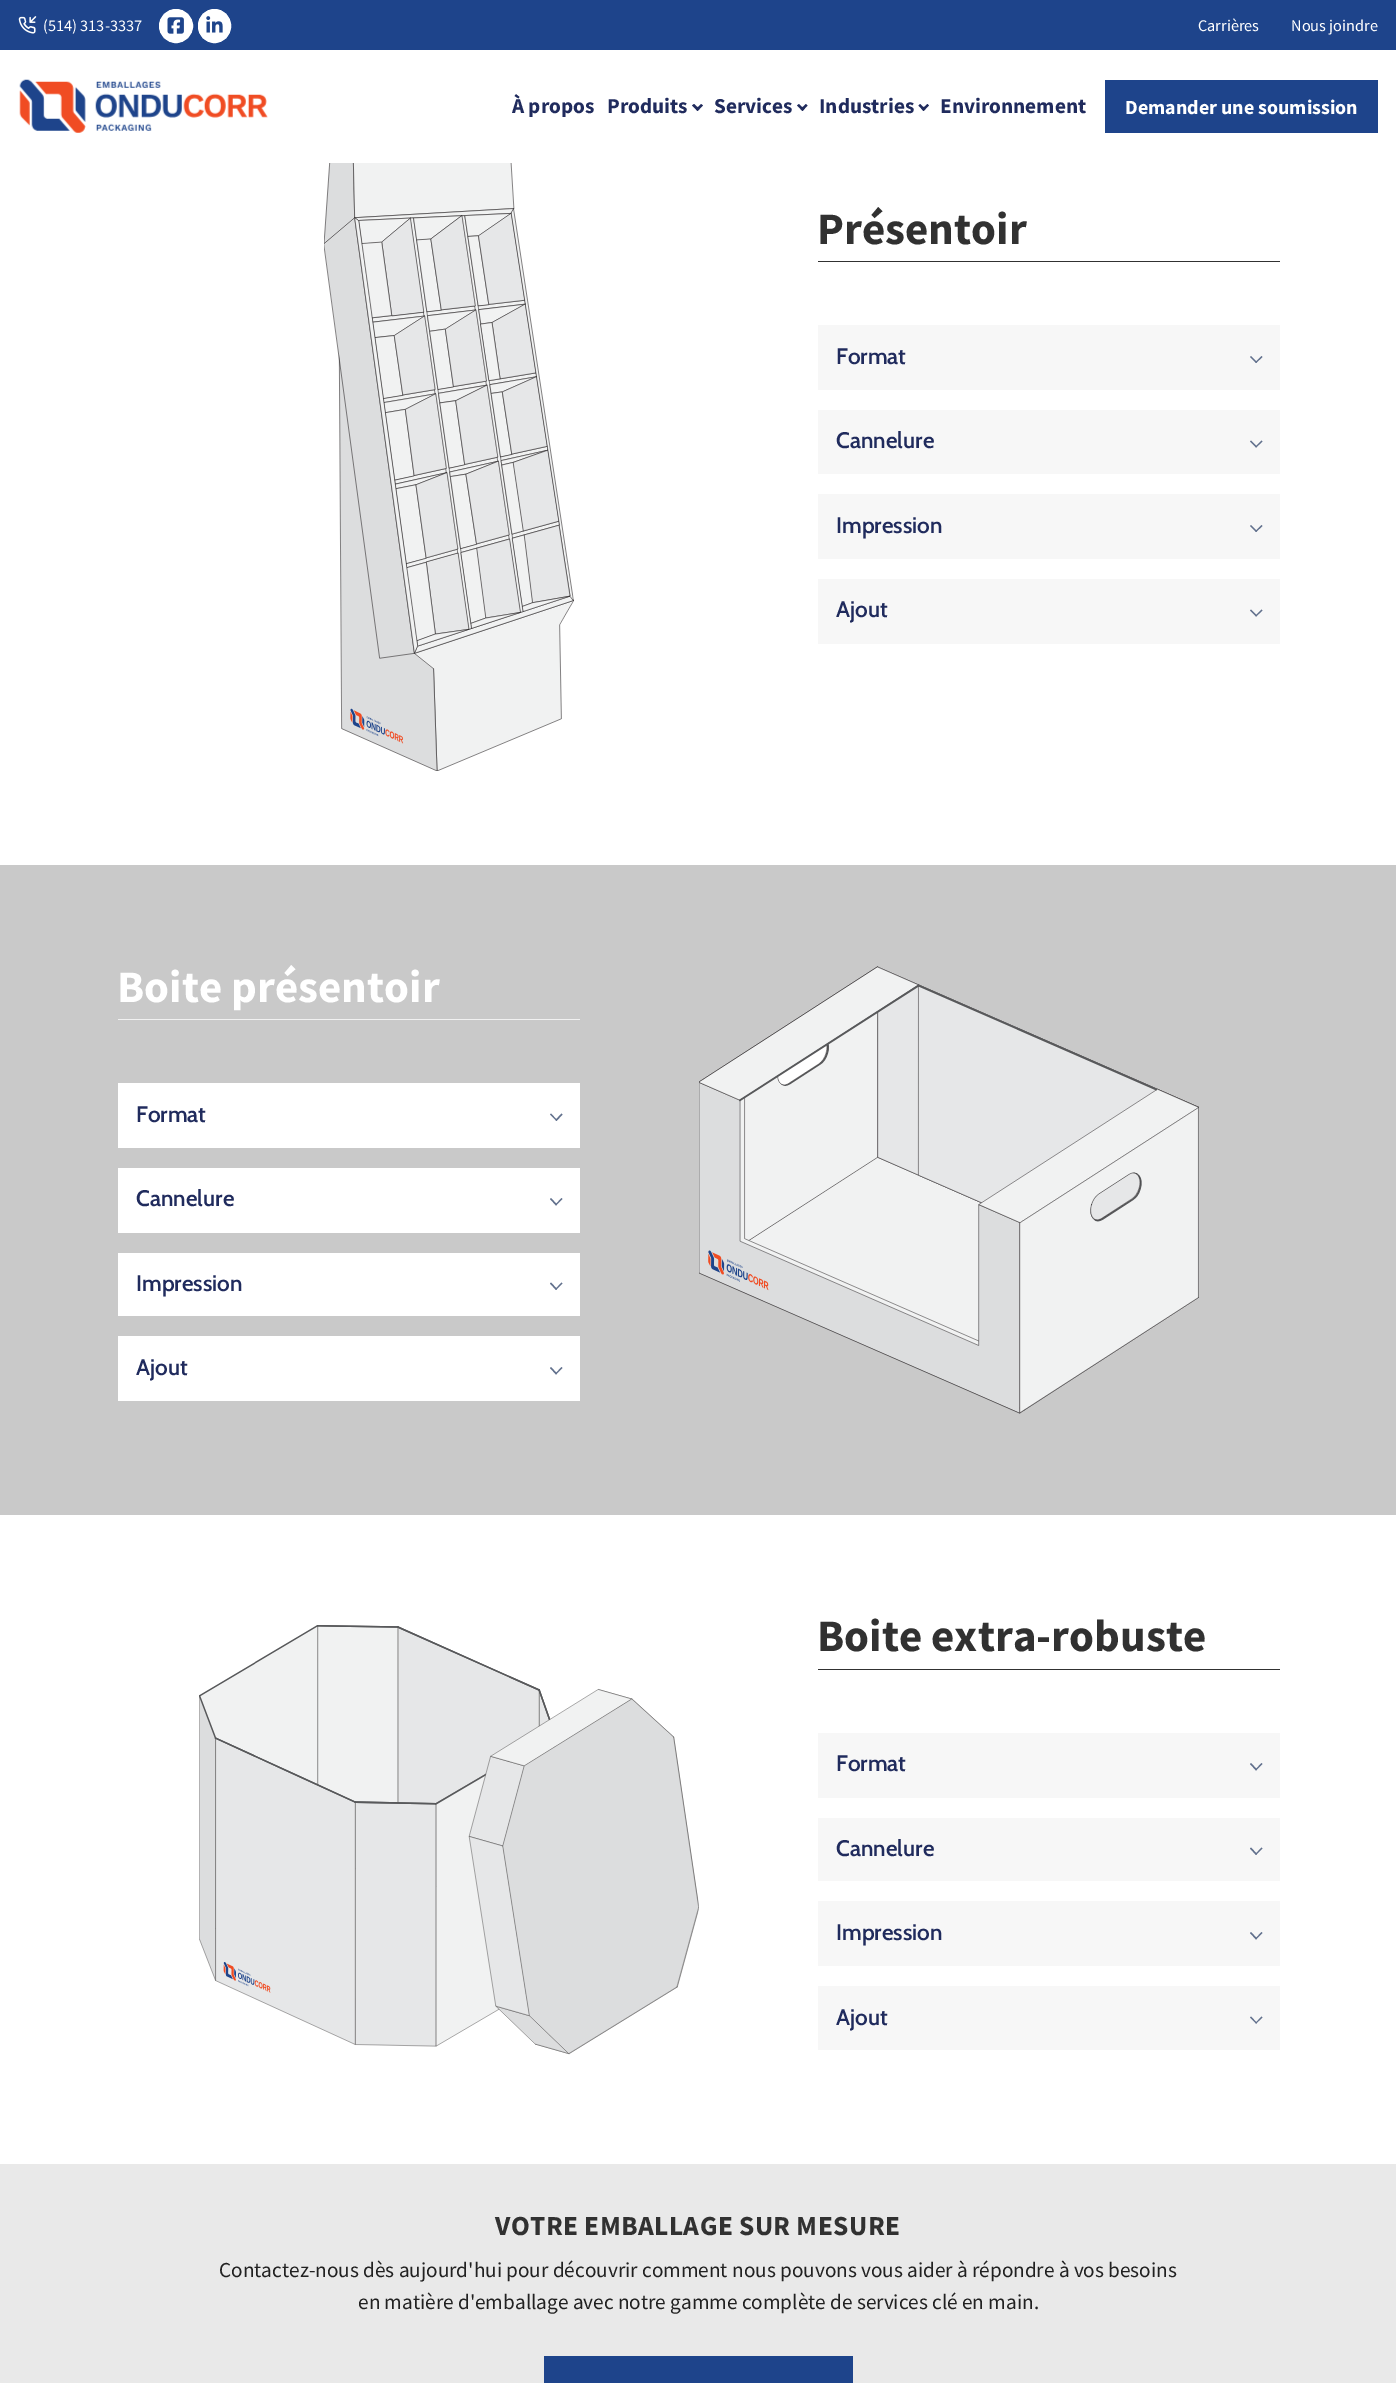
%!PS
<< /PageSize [1396 2383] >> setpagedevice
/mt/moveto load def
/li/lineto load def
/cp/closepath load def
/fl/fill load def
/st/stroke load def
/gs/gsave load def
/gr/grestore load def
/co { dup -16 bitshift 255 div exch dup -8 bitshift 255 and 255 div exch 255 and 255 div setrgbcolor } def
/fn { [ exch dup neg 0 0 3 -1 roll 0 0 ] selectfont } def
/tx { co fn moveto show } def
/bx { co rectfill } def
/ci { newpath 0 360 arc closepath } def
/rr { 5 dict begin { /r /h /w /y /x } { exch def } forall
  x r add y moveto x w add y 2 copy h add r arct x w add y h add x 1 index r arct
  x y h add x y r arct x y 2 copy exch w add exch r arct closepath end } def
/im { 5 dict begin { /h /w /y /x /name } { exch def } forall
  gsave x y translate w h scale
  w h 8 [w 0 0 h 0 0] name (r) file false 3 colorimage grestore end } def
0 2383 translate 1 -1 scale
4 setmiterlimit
0 0 1396 2383 16#FFFFFF bx
0 0 1396 50 16#1E448B bx
(media/1.raw) 18 16 19 18 im
16#FFFFFF co
176 26 16.5 ci gs fl gr
st
(media/2.raw) 167 17 17 17 im
198.5 9.5 32 33 16 rr gs fl gr
st
(media/3.raw) 206 16 17 17 im
(media/4.raw) 19 79 249 54 im
16#202B5D co
701 104 mt 703 105.5 li 697.5 111 li 696 109 li cp fl
694 104 mt 699.5 109 li 697.5 111 li 692 105.5 li cp fl
806 104 mt 807.5 105.5 li 802.5 111 li 800.5 109 li cp fl
799 104 mt 804 109 li 802.5 111 li 797 105.5 li cp fl
927.5 104 mt 929 105.5 li 923.5 111 li 922 109 li cp fl
920 104 mt 925.5 109 li 923.5 111 li 918.5 105.5 li cp fl
1105 80 273 53 16#1E448B bx
(media/5.raw) 324 163 250 608 im
818 261 462 1 16#313131 bx
818 325 462 65 16#F7F7F7 bx
16#62718D co
1255.5 362 mt 1261.5 356 li 1262.5 357 li 1256 363 li cp fl
1250 357 mt 1251 356 li 1257 362 li 1256 363 li cp fl
818 410 462 64 16#F7F7F7 bx
16#62718D co
1255.5 446.5 mt 1261.5 440.5 li 1262.5 441.5 li 1256 447.5 li cp fl
1250 441.5 mt 1251 440.5 li 1257 446.5 li 1256 447.5 li cp fl
818 494 462 65 16#F7F7F7 bx
16#62718D co
1255.5 531 mt 1261.5 525 li 1262.5 526 li 1256 532 li cp fl
1250 526 mt 1251 525 li 1257 531 li 1256 532 li cp fl
818 579 462 65 16#F7F7F7 bx
16#62718D co
1255.5 615.5 mt 1261.5 609.5 li 1262.5 610.5 li 1256 616.5 li cp fl
1250 610.5 mt 1251 609.5 li 1257 615.5 li 1256 616.5 li cp fl
0 865 1396 650 16#C9C9C9 bx
118 1019 462 1 16#F1F1F1 bx
118 1083 462 65 16#FFFFFF bx
16#62718D co
555.5 1120 mt 561.5 1113.5 li 562.5 1114.5 li 556.5 1121 li cp fl
550 1114.5 mt 551 1113.5 li 557 1120 li 556.5 1121 li cp fl
118 1168 462 65 16#FFFFFF bx
16#62718D co
555.5 1204.5 mt 561.5 1198 li 562.5 1199 li 556 1205.5 li cp fl
550 1199 mt 551 1198 li 557 1204.5 li 556 1205.5 li cp fl
118 1253 462 63 16#FFFFFF bx
16#62718D co
555.5 1289 mt 561.5 1282.5 li 562.5 1283.5 li 556 1290 li cp fl
550 1283.5 mt 551 1282.5 li 557 1289 li 556 1290 li cp fl
118 1336 462 65 16#FFFFFF bx
16#62718D co
555.5 1373.5 mt 561.5 1367 li 562.5 1368 li 556 1374.5 li cp fl
550 1368 mt 551 1367 li 557 1373.5 li 556 1374.5 li cp fl
(media/6.raw) 699 966 500 448 im
(media/7.raw) 199 1625 500 430 im
818 1669 462 1 16#313131 bx
818 1733 462 65 16#F7F7F7 bx
16#62718D co
1255.5 1769.5 mt 1261.5 1763 li 1262.5 1764 li 1256 1770.5 li cp fl
1250 1764 mt 1251 1763 li 1257 1769.5 li 1256 1770.5 li cp fl
818 1818 462 63 16#F7F7F7 bx
16#62718D co
1255.5 1854 mt 1261.5 1847.5 li 1262.5 1848.5 li 1256 1855 li cp fl
1250 1848.5 mt 1251 1847.5 li 1257 1854 li 1256 1855 li cp fl
818 1901 462 65 16#F7F7F7 bx
16#62718D co
1255.5 1938.5 mt 1261.5 1932 li 1262.5 1933 li 1256 1939.5 li cp fl
1250 1933 mt 1251 1932 li 1257 1938.5 li 1256 1939.5 li cp fl
818 1986 462 64 16#F7F7F7 bx
16#62718D co
1255.5 2023 mt 1261.5 2016.5 li 1262.5 2017.5 li 1256 2023.5 li cp fl
1250 2017.5 mt 1251 2016.5 li 1257 2023 li 1256 2023.5 li cp fl
0 2164 1396 219 16#E9E9E9 bx
544 2356 309 27 16#1E448B bx
(\(514\) 313-3337) 43 31 /SourceSansPro-Regular 16.25 16#FFFFFF tx
(Carrières) 1198 31 /SourceSansPro-Regular 16.25 16#FFFFFF tx
(Nous joindre) 1291 31 /SourceSansPro-Regular 16.25 16#FFFFFF tx
(À propos) 512 113 /SourceSansPro-Bold 21.25 16#202B5D tx
(Produits) 607 113 /SourceSansPro-Bold 21.25 16#202B5D tx
(Services) 714 113 /SourceSansPro-Bold 21.25 16#202B5D tx
(Industries) 819 113 /SourceSansPro-Bold 21.25 16#202B5D tx
(Environnement) 940 113 /SourceSansPro-Bold 21.25 16#202B5D tx
(Demander une soumission) 1125 114 /SourceSansPro-Bold 20 16#FFFFFF tx
(Présentoir) 817 244 /SourceSansPro-Bold 45 16#313131 tx
(Format) 836 364 /Cabin-SemiBold 22.5 16#202B5D tx
(Cannelure) 836 448 /Cabin-SemiBold 22.5 16#202B5D tx
(Impression) 836 533 /Cabin-SemiBold 22.5 16#202B5D tx
(Ajout) 836 617 /Cabin-SemiBold 22.5 16#202B5D tx
(Boite présentoir) 117 1002 /SourceSansPro-Bold 45 16#FFFFFF tx
(Format) 136 1122 /Cabin-SemiBold 22.5 16#202B5D tx
(Cannelure) 136 1206 /Cabin-SemiBold 22.5 16#202B5D tx
(Impression) 136 1291 /Cabin-SemiBold 22.5 16#202B5D tx
(Ajout) 136 1375 /Cabin-SemiBold 22.5 16#202B5D tx
(Boite extra-robuste) 817 1651 /SourceSansPro-Bold 45 16#313131 tx
(Format) 836 1771 /Cabin-SemiBold 22.5 16#202B5D tx
(Cannelure) 836 1856 /Cabin-SemiBold 22.5 16#202B5D tx
(Impression) 836 1940 /Cabin-SemiBold 22.5 16#202B5D tx
(Ajout) 836 2025 /Cabin-SemiBold 22.5 16#202B5D tx
/SourceSansPro-Bold 27.5 fn
16#313131 co
495 2235 mt .4 0 (VOTRE EMBALLAGE SUR MESURE) ashow
(Contactez-nous dès aujourd'hui pour découvrir comment nous pouvons vous aider à répondre à vos besoins) 219 2277 /SourceSansPro-Regular 21.25 16#212121 tx
(en matière d'emballage avec notre gamme complète de services clé en main.) 358 2309 /SourceSansPro-Regular 21.25 16#212121 tx
showpage
